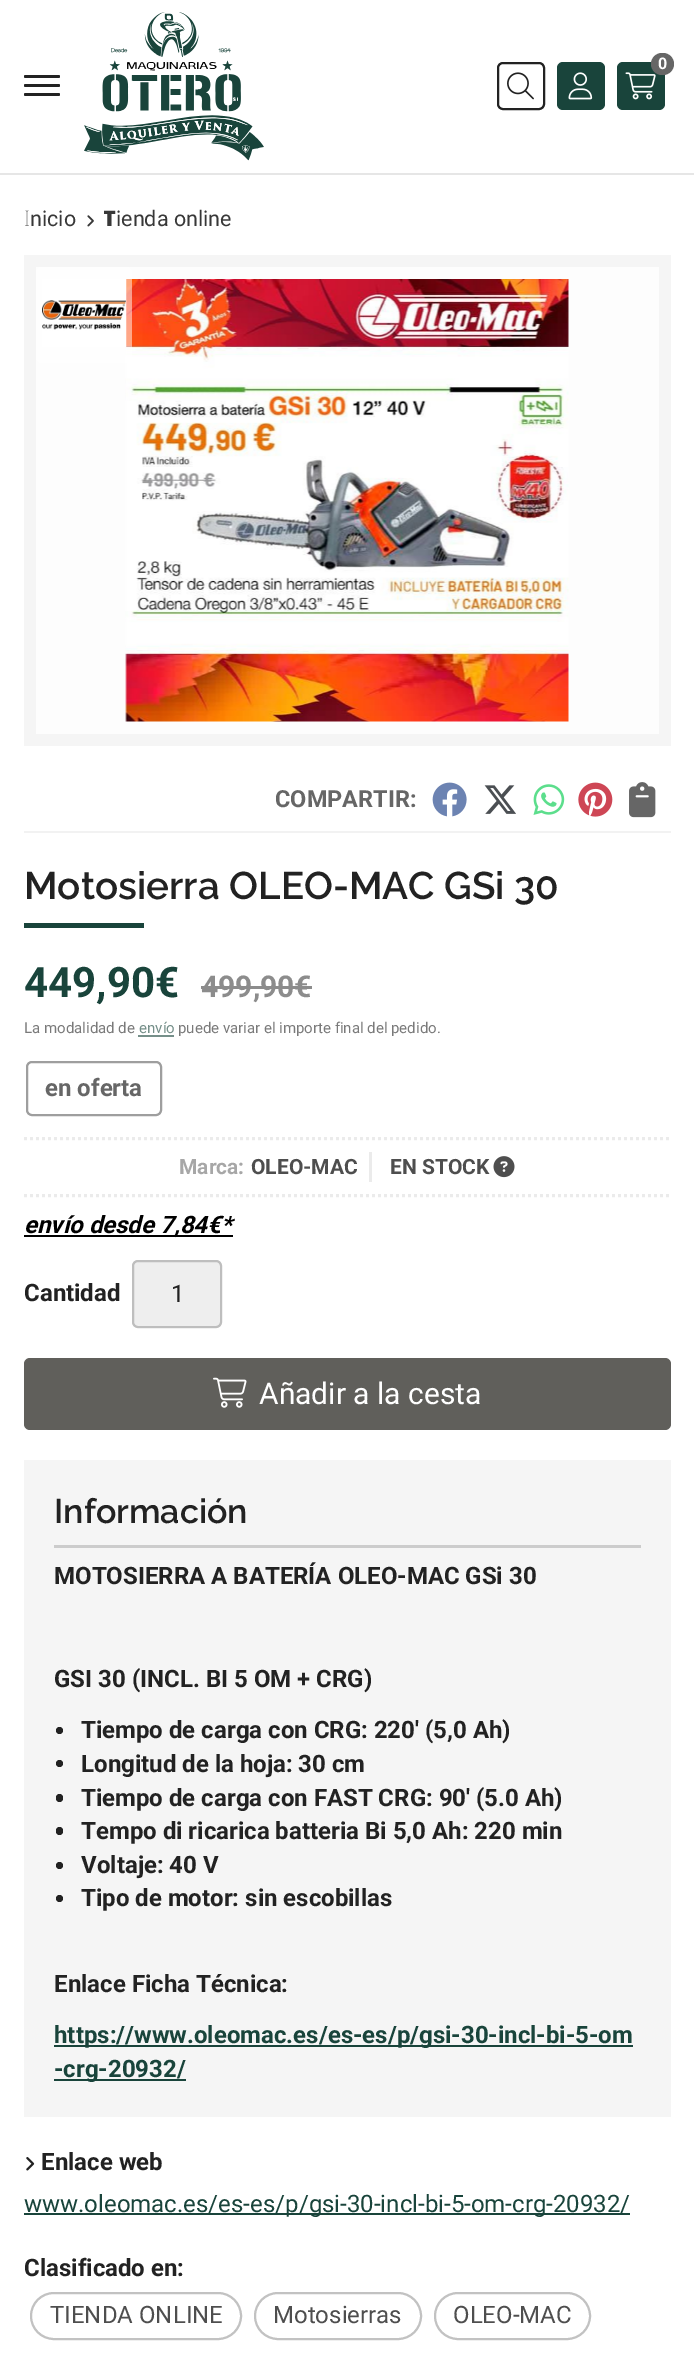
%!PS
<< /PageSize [694 2362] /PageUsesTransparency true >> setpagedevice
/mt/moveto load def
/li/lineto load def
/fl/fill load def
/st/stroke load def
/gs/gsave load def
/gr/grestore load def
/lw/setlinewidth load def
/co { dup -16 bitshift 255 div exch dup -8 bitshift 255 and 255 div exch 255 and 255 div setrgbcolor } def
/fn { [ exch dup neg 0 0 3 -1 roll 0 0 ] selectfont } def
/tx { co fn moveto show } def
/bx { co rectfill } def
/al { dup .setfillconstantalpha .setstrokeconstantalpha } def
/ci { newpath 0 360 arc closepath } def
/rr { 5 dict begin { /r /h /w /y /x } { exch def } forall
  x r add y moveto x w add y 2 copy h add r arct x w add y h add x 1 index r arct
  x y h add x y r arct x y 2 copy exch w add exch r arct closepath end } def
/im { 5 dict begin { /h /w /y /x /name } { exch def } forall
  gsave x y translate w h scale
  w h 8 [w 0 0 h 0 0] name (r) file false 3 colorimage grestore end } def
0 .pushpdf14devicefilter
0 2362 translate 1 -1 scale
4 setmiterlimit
0 0 694 2362 16#FFFFFF bx
0 173 694 2 16#E6E6E6 bx
16#222222 co
24 75 36 3 1.5 rr fl
24 84 36 3 1.5 rr fl
24 93 36 3 1.5 rr fl
(media/1.raw) 84 12 180 149 im
2 lw
498 63 46 46 5 rr st
(media/2.raw) 507 72 27 28 im
16#19443B co
557 62 48 48 6 rr fl
(media/3.raw) 568 72 25 28 im
617 62 48 48 6 rr fl
(media/4.raw) 625 72 31 28 im
16#666666 co
651 53 23 22 11 rr fl
(media/5.raw) 87 215 7 12 im
24 255 647 491 16#F5F5F5 bx
36 267 623 467 16#FDFDFD bx
(media/6.raw) 125 279 444 443 im
0.5 al
16#FFFFFF co
36 267 96 96 6 rr fl
1 al
(media/7.raw) 42 279 84 68 im
24 831 647 2 16#F2F2F2 bx
(media/8.raw) 432 782 35 35 im
(media/9.raw) 484 785 32 29 im
(media/10.raw) 533 784 32 31 im
(media/11.raw) 578 782 35 35 im
(media/12.raw) 629 782 27 36 im
24 923 120 5 16#19443B bx
201 986 111 3 16#8C8C8C bx
138 1035 36 2 16#758F89 bx
16#9E9E9E co
27 1062 134 53 5 rr st
16#EBEBEB co
3 lw
[3 3] 0 setdash
24 1138.5 mt 670.5 1138.5 li st
24 1195.5 mt 670.5 1195.5 li st
369 1152 3 30 16#EBEBEB bx
(media/13.raw) 493 1156 22 22 im
24 1235 183 2 16#000000 bx
207 1235 26 2 16#000000 bx
16#EEEEEE co
132 1260 90 68 6 rr fl
0.2 al
16#000000 co
2 lw
[] 0 setdash
133 1261 88 66 5 rr st
1 al
16#605F5B co
24 1358 647 72 6 rr fl
(media/14.raw) 213 1377 34 31 im
24 1460 647 657 16#F5F5F5 bx
54 1545 587 3 16#CCCCCC bx
16#222222 co
59.5 1730.5 3.5 ci fl
59.5 1763.5 3.5 ci fl
56 1794 7 8 3.5 rr fl
56 1827 7 8 3.5 rr fl
59.5 1865.5 3.5 ci fl
59.5 1898.5 3.5 ci fl
54 2045 579 2 16#19443B bx
54 2079 132 2 16#19443B bx
(media/15.raw) 26 2157 9 14 im
24 2213 606 2 16#19443B bx
16#C2C2C2 co
31 2293 210 46 23 rr st
255 2293 166 46 23 rr st
435 2293 155 46 23 rr st
(0) 658 69 /Roboto-Bold 16 16#FFFFFF tx
(I) 24 226 /NotoSans-Thin 21.5 16#383838 tx
(nicio) 30 226 /Roboto-Regular 21.5 16#383838 tx
gs
104 204 129 33 rectclip
(T) 103 226 /NotoSans-Black 21.5 16#383838 tx
gr
(ienda online) 116 226 /Roboto-Regular 21.5 16#383838 tx
(COMPARTIR:) 275 807 /Roboto-Bold 23.5 16#666666 tx
(Motosierra OLEO-MAC GSi 30) 24 899 /Raleway-SemiBold 38.5 16#222222 tx
(449,90€) 24 997 /Roboto-Bold 42 16#19443B tx
(499,90€) 201 997 /Roboto-Bold 30 16#8C8C8C tx
(La modalidad de) 24 1033 /Roboto-Regular 15 16#7A7A7A tx
(envío) 139 1033 /Roboto-Regular 15 16#758F89 tx
(puede variar el importe final del pedido.) 178 1033 /Roboto-Regular 15 16#7A7A7A tx
(en oferta) 45 1096 /Roboto-Bold 24 16#666666 tx
(Marca:) 179 1174 /Roboto-Bold 21 16#A7A7A7 tx
(OLEO-MAC) 251 1174 /Roboto-Bold 21 16#4E4E4E tx
(EN STOCK) 390 1174 /Roboto-Bold 21 16#4E4E4E tx
(envío desde 7,84€*) 24 1233 /Roboto-BoldItalic 24 16#000000 tx
(Cantidad) 24 1301 /Roboto-Bold 24 16#222222 tx
(1) 171 1302 /Roboto-Regular 24 16#222222 tx
(Añadir a la cesta) 259 1404 /Roboto-Regular 30 16#FFFFFF tx
(Información) 54 1523 /Raleway-SemiBold 34 16#222222 tx
(MOTOSIERRA A BATERÍA OLEO-MAC GSi 30) 54 1584 /Roboto-Bold 24 16#222222 tx
(GSI 30 \(INCL. BI 5 OM + CRG\)) 54 1687 /Roboto-Bold 24 16#222222 tx
(Tiempo de carga con CRG: 220' \(5,0 Ah\)) 81 1738 /Roboto-Bold 24 16#222222 tx
(Longitud de la hoja: 30 cm) 81 1772 /Roboto-Bold 24 16#222222 tx
(Tiempo de carga con FAST CRG: 90' \(5.0 Ah\)) 81 1806 /Roboto-Bold 24 16#222222 tx
(Tempo di ricarica batteria Bi 5,0 Ah: 220 min) 81 1839 /Roboto-Bold 24 16#222222 tx
(Voltaje: 40 V) 81 1873 /Roboto-Bold 24 16#222222 tx
(Tipo de motor: sin escobillas) 81 1906 /Roboto-Bold 24 16#222222 tx
(Enlace Ficha Técnica:) 54 1992 /Roboto-Bold 24 16#222222 tx
(https://www.oleomac.es/es-es/p/gsi-30-incl-bi-5-om) 54 2043 /Roboto-Bold 24 16#19443B tx
(-crg-20932/) 54 2077 /Roboto-Bold 24 16#19443B tx
(Enlace web) 41 2170 /Roboto-Bold 24 16#222222 tx
(www.oleomac.es/es-es/p/gsi-30-incl-bi-5-om-crg-20932/) 24 2212 /Roboto-Regular 24 16#19443B tx
(Clasificado en:) 24 2276 /Roboto-Bold 24 16#222222 tx
(TIENDA ONLINE) 50 2323 /Roboto-Regular 24 16#4E4E4E tx
(Motosierras) 273 2323 /Roboto-Regular 24 16#4E4E4E tx
(OLEO-MAC) 453 2323 /Roboto-Regular 24 16#4E4E4E tx
.poppdf14devicefilter showpage
